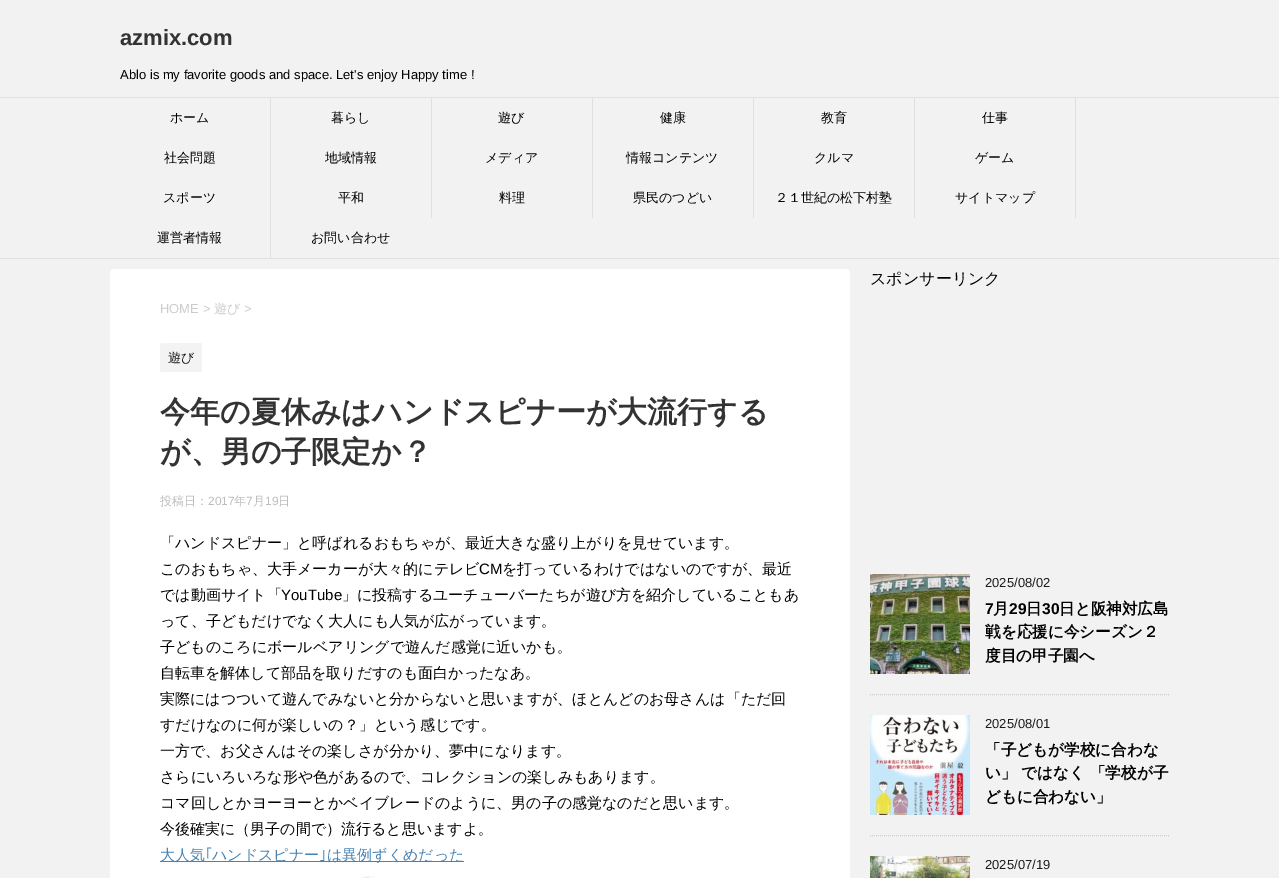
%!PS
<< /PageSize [1279 878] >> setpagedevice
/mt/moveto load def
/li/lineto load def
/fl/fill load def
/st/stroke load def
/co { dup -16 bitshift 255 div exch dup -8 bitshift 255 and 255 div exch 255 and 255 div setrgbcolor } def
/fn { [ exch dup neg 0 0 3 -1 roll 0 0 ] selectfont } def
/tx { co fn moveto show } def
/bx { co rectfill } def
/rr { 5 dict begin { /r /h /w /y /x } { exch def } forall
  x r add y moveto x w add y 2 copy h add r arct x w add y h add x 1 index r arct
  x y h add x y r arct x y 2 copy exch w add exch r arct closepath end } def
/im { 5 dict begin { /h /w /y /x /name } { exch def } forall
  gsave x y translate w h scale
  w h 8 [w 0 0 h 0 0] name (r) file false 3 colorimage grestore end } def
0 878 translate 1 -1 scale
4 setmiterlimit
0 0 1279 878 16#F2F2F2 bx
0 97 1279 1 16#E0DEDE bx
0 258 1279 1 16#E0DEDE bx
270 98 1 160 16#E0DEDE bx
431 98 1 120 16#E0DEDE bx
592 98 1 120 16#E0DEDE bx
753 98 1 120 16#E0DEDE bx
914 98 1 120 16#E0DEDE bx
1075 98 1 120 16#E0DEDE bx
16#FFFFFF co
110 269 740 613 4 rr fl
16#F3F3F3 co
160 343 42 29 2 rr fl
160 861 304 1 16#4682B4 bx
(media/1.raw) 348 874 36 4 im
16#CCCCCC co
[1 1] 0 setdash
870 694.5 mt 1170 694.5 li st
(media/2.raw) 870 574 100 100 im
870 835.5 mt 1170 835.5 li st
(media/3.raw) 870 715 100 100 im
(media/4.raw) 870 856 100 22 im
(azmix.com) 120 45 /LiberationSans-Bold 22 16#333333 tx
(Ablo is my favorite goods and space. Let's enjoy Happy time !) 120 79 /LiberationSans-Regular 13 16#000000 tx
(ホーム) 170 122 /WenQuanYiZenHei-Medium 13 16#000000 tx
(暮らし) 331 122 /WenQuanYiZenHei-Medium 13 16#000000 tx
(遊び) 498 122 /WenQuanYiZenHei-Medium 13 16#000000 tx
(健康) 660 122 /WenQuanYiZenHei-Medium 13 16#000000 tx
(教育) 821 122 /WenQuanYiZenHei-Medium 13 16#000000 tx
(仕事) 982 122 /WenQuanYiZenHei-Medium 13 16#000000 tx
(社会問題) 164 162 /WenQuanYiZenHei-Medium 13 16#000000 tx
(地域情報) 325 162 /WenQuanYiZenHei-Medium 13 16#000000 tx
(メディア) 485 162 /WenQuanYiZenHei-Medium 13 16#000000 tx
(情報コンテンツ) 626 162 /WenQuanYiZenHei-Medium 13 16#000000 tx
(クルマ) 814 162 /WenQuanYiZenHei-Medium 13 16#000000 tx
(ゲーム) 975 162 /WenQuanYiZenHei-Medium 13 16#000000 tx
(スポーツ) 163 202 /WenQuanYiZenHei-Medium 13 16#000000 tx
(平和) 338 202 /WenQuanYiZenHei-Medium 13 16#000000 tx
(料理) 499 202 /WenQuanYiZenHei-Medium 13 16#000000 tx
(県民のつどい) 633 202 /WenQuanYiZenHei-Medium 13 16#000000 tx
(２１世紀の松下村塾) 775 202 /WenQuanYiZenHei-Medium 13 16#000000 tx
(サイトマップ) 955 202 /WenQuanYiZenHei-Medium 13 16#000000 tx
(運営者情報) 157 242 /WenQuanYiZenHei-Medium 13 16#000000 tx
(お問い合わせ) 311 242 /WenQuanYiZenHei-Medium 13 16#000000 tx
(HOME >) 160 313 /LiberationSans-Regular 13 16#CCCCCC tx
(遊び) 214 313 /WenQuanYiZenHei-Medium 13 16#CCCCCC tx
(>) 244 313 /LiberationSans-Regular 13 16#CCCCCC tx
(遊び) 168 362 /WenQuanYiZenHei-Medium 13 16#1A1A1A tx
(今年の夏休みはハンドスピナーが大流行する) 160 422 /WenQuanYiZenHei-Bold 30 16#333333 tx
(が、男の子限定か？) 160 462 /WenQuanYiZenHei-Bold 30 16#333333 tx
(投稿日：) 160 505 /WenQuanYiZenHei-Medium 12 16#BDBDBD tx
(2017) 208 505 /LiberationSans-Regular 12 16#BDBDBD tx
(年) 234 505 /WenQuanYiZenHei-Medium 12 16#BDBDBD tx
(7) 246 505 /LiberationSans-Regular 12 16#BDBDBD tx
(月) 253 505 /WenQuanYiZenHei-Medium 12 16#BDBDBD tx
(19) 265 505 /LiberationSans-Regular 12 16#BDBDBD tx
(日) 278 505 /WenQuanYiZenHei-Medium 12 16#BDBDBD tx
(「ハンドスピナー」と呼ばれるおもちゃが、最近大きな盛り上がりを見せています。) 160 548 /WenQuanYiZenHei-Medium 15 16#000000 tx
(このおもちゃ、大手メーカーが大々的にテレビ) 160 574 /WenQuanYiZenHei-Medium 15 16#000000 tx
(CM) 479 574 /LiberationSans-Regular 15 16#000000 tx
(を打っているわけではないのですが、最近) 502 574 /WenQuanYiZenHei-Medium 15 16#000000 tx
(では動画サイト「) 160 600 /WenQuanYiZenHei-Medium 15 16#000000 tx
(YouTube) 281 600 /LiberationSans-Regular 15 16#000000 tx
(」に投稿するユーチューバーたちが遊び方を紹介していることもあ) 342 600 /WenQuanYiZenHei-Medium 15 16#000000 tx
(って、子どもだけでなく大人にも人気が広がっています。) 160 626 /WenQuanYiZenHei-Medium 15 16#000000 tx
(子どものころにボールベアリングで遊んだ感覚に近いかも。) 160 652 /WenQuanYiZenHei-Medium 15 16#000000 tx
(自転車を解体して部品を取りだすのも面白かったなあ。) 160 678 /WenQuanYiZenHei-Medium 15 16#000000 tx
(実際にはつついて遊んでみないと分からないと思いますが、ほとんどのお母さんは「ただ回) 160 704 /WenQuanYiZenHei-Medium 15 16#000000 tx
(すだけなのに何が楽しいの？」という感じです。) 160 730 /WenQuanYiZenHei-Medium 15 16#000000 tx
(一方で、お父さんはその楽しさが分かり、夢中になります。) 160 756 /WenQuanYiZenHei-Medium 15 16#000000 tx
(さらにいろいろな形や色があるので、コレクションの楽しみもあります。) 160 782 /WenQuanYiZenHei-Medium 15 16#000000 tx
(コマ回しとかヨーヨーとかベイブレードのように、男の子の感覚なのだと思います。) 160 808 /WenQuanYiZenHei-Medium 15 16#000000 tx
(今後確実に（男子の間で）流行ると思いますよ。) 160 834 /WenQuanYiZenHei-Medium 15 16#000000 tx
(大人気) 160 860 /WenQuanYiZenHei-Medium 15 16#4682B4 tx
(｢) 205 860 /IPAPGothic-Regular 15 16#4682B4 tx
(ハンドスピナー) 212 860 /WenQuanYiZenHei-Medium 15 16#4682B4 tx
(｣) 319 860 /IPAPGothic-Regular 15 16#4682B4 tx
(は異例ずくめだった) 327 860 /WenQuanYiZenHei-Medium 15 16#4682B4 tx
(スポンサーリンク) 870 284 /WenQuanYiZenHei-Medium 16 16#000000 tx
(2025/08/02) 985 587 /LiberationSans-Regular 13 16#1A1A1A tx
(7) 985 614 /LiberationSans-Bold 15.6 16#000000 tx
(月) 993 614 /WenQuanYiZenHei-Bold 15.6 16#000000 tx
(29) 1009 614 /LiberationSans-Bold 15.6 16#000000 tx
(日) 1026 614 /WenQuanYiZenHei-Bold 15.6 16#000000 tx
(30) 1042 614 /LiberationSans-Bold 15.6 16#000000 tx
(日と阪神対広島) 1059 614 /WenQuanYiZenHei-Bold 15.6 16#000000 tx
(戦を応援に今シーズン２) 985 637 /WenQuanYiZenHei-Bold 15.6 16#000000 tx
(度目の甲子園へ) 985 661 /WenQuanYiZenHei-Bold 15.6 16#000000 tx
(2025/08/01) 985 728 /LiberationSans-Regular 13 16#1A1A1A tx
(「子どもが学校に合わな) 985 755 /WenQuanYiZenHei-Bold 15.6 16#000000 tx
(い」 ではなく 「学校が子) 985 778 /WenQuanYiZenHei-Bold 15.6 16#000000 tx
(どもに合わない」) 985 802 /WenQuanYiZenHei-Bold 15.6 16#000000 tx
(2025/07/19) 985 869 /LiberationSans-Regular 13 16#1A1A1A tx
showpage
